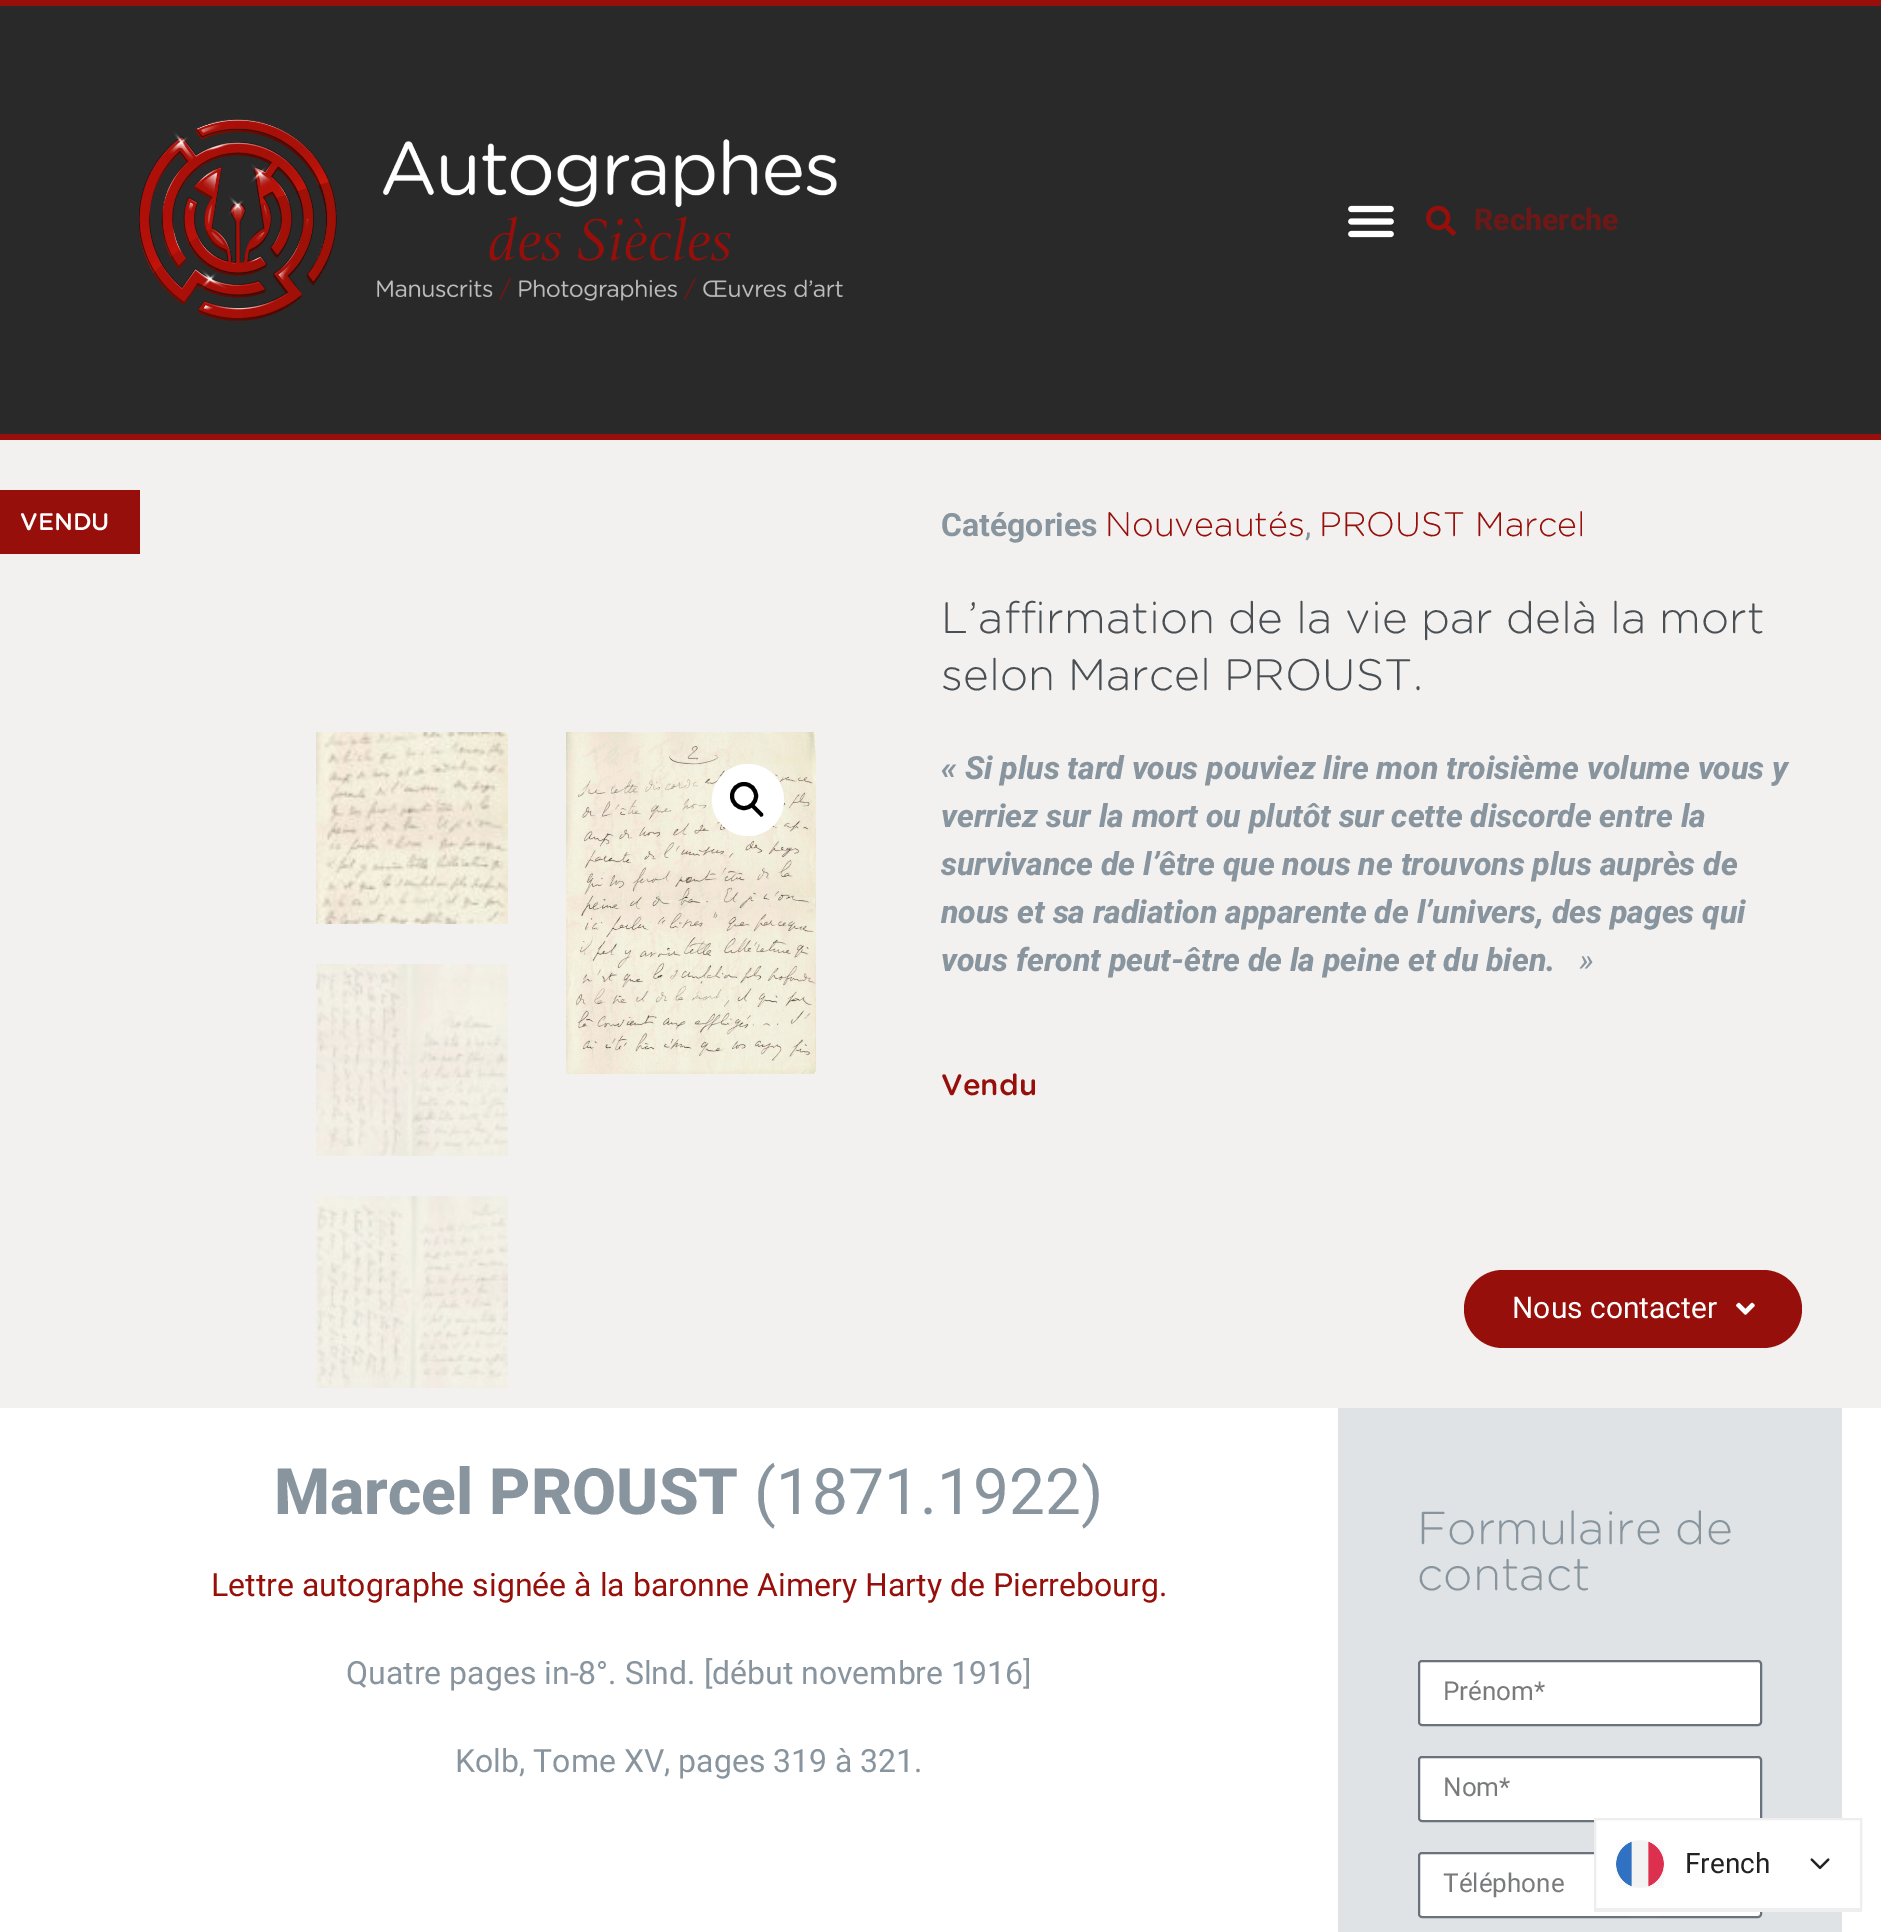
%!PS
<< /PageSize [1881 1932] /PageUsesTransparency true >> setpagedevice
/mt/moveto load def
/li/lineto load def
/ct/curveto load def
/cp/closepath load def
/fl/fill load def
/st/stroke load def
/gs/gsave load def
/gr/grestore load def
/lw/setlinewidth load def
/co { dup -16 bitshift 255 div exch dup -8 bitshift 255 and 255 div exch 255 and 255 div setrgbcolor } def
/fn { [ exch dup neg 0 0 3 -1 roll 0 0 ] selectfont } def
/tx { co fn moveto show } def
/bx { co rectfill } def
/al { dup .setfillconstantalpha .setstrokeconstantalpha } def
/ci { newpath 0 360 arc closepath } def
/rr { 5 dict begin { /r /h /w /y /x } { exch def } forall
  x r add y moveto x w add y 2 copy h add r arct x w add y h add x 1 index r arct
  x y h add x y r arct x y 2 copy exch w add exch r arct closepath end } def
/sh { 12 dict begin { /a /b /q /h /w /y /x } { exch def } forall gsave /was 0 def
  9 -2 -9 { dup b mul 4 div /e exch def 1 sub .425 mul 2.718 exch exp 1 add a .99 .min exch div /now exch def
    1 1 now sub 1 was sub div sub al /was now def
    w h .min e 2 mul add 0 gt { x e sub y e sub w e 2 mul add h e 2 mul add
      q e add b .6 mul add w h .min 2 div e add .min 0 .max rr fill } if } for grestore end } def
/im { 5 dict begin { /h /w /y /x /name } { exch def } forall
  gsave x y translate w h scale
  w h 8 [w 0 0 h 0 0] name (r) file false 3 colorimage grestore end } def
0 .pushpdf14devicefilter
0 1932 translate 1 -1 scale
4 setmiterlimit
0 0 1881 1932 16#29292A bx
0 0 1881 6 16#960F0A bx
0 434 1881 6 16#960F0A bx
(media/1.raw) 139 119 704 202 im
(media/2.raw) 1348 205 46 33 im
(media/3.raw) 1426 205 30 31 im
0 440 1881 968 16#F2F1F0 bx
0 490 140 64 16#960F0A bx
(media/4.raw) 316 732 192 192 im
(media/5.raw) 316 964 192 192 im
(media/6.raw) 316 1196 192 192 im
(media/7.raw) 566 732 250 342 im
16#FFFFFF co
748 800 36 ci fl
16#000000 co
4 lw
744 796 12 ci st
751.5 804.5 mt 752 804 753.5 804 754 804.5 ct 762.5 813 li 763.5 814 763.5 815.5 762.5 816 ct 762 817 760.5 817 760 816 ct 751.5 807.5 li 750.5 807 750.5 805.5 751.5 804.5 ct cp fl
16#960F0A co
1464 1270 338 78 39 rr fl
(media/8.raw) 1736 1302 19 13 im
0 1408 1881 524 16#FFFFFF bx
1338 1408 504 524 16#DFE3E5 bx
16#FFFFFF co
1419 1661 342 64 3 rr gs fl gr
16#69727D co
2 lw
st
16#FFFFFF co
1419 1757 342 64 3 rr gs fl gr
16#69727D co
st
16#FFFFFF co
1419 1853 342 64 3 rr gs fl gr
16#69727D co
st
16#EEEEEE co
1620 1844 48 48 24 12 .8 sh
1596 1820 246 88 16#FFFFFF bx
1594 1910 268 2 16#EEEEEE bx
1595 1819 266 90 rectstroke
(media/9.raw) 1616 1840 48 48 im
(media/10.raw) 1810 1858 20 12 im
(Recherche) 1474 230 /Roboto-ExtraBold 30 16#6A1917 tx
(VENDU) 20 530 /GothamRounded-Medium 24 16#FFFFFF tx
(Catégories) 941 536 /Roboto-Bold 32 16#88959E tx
(Nouveautés) 1105 536 /GothamRounded-Light 34 16#960F0A tx
(,) 1305 536 /Roboto-Regular 32 16#88959E tx
(PROUST Marcel) 1319 536 /GothamRounded-Light 34 16#960F0A tx
(L’affirmation de la vie par delà la mort) 941 633 /GothamRounded-Light 44 16#4A4F54 tx
(selon Marcel PROUST.) 941 690 /GothamRounded-Light 44 16#4A4F54 tx
(« Si plus tard vous pouviez lire mon troisième volume vous y) 941 779 /Roboto-ExtraBoldItalic 32 16#88959E tx
(verriez sur la mort ou plutôt sur cette discorde entre la) 941 827 /Roboto-ExtraBoldItalic 32 16#88959E tx
(survivance de l’être que nous ne trouvons plus auprès de) 941 875 /Roboto-ExtraBoldItalic 32 16#88959E tx
(nous et sa radiation apparente de l’univers, des pages qui) 941 923 /Roboto-ExtraBoldItalic 32 16#88959E tx
(vous feront peut-être de la peine et du bien.) 941 971 /Roboto-ExtraBoldItalic 32 16#88959E tx
(») 1579 971 /Roboto-Italic 32 16#88959E tx
(Vendu) 941 1095 /GothamRounded-Medium 29.5 16#960F0A tx
(Nous contacter) 1512 1318 /Roboto-Regular 30 16#FFFFFF tx
(Marcel PROUST) 274 1514 /Roboto-ExtraBold 64 16#88959E tx
(\(1871.1922\)) 754 1514 /Roboto-Regular 64 16#88959E tx
(Lettre autographe signée à la baronne Aimery Harty de Pierrebourg.) 211 1596 /Roboto-Regular 32 16#960F0A tx
(Quatre pages in-8°. Slnd. [début novembre 1916]) 346 1684 /Roboto-Regular 32 16#88959E tx
(Kolb, Tome XV, pages 319 à 321.) 455 1772 /Roboto-Regular 32 16#88959E tx
(Formulaire de) 1417 1544 /GothamRounded-Light 46 16#88959E tx
(contact) 1417 1590 /GothamRounded-Light 46 16#88959E tx
(Prénom*) 1443 1700 /Roboto-Regular 26 16#797A7C tx
(Nom*) 1443 1796 /Roboto-Regular 26 16#797A7C tx
(Téléphone) 1443 1892 /Roboto-Regular 26 16#797A7C tx
(French) 1685 1873 /Roboto-Regular 28 16#222222 tx
.poppdf14devicefilter showpage
